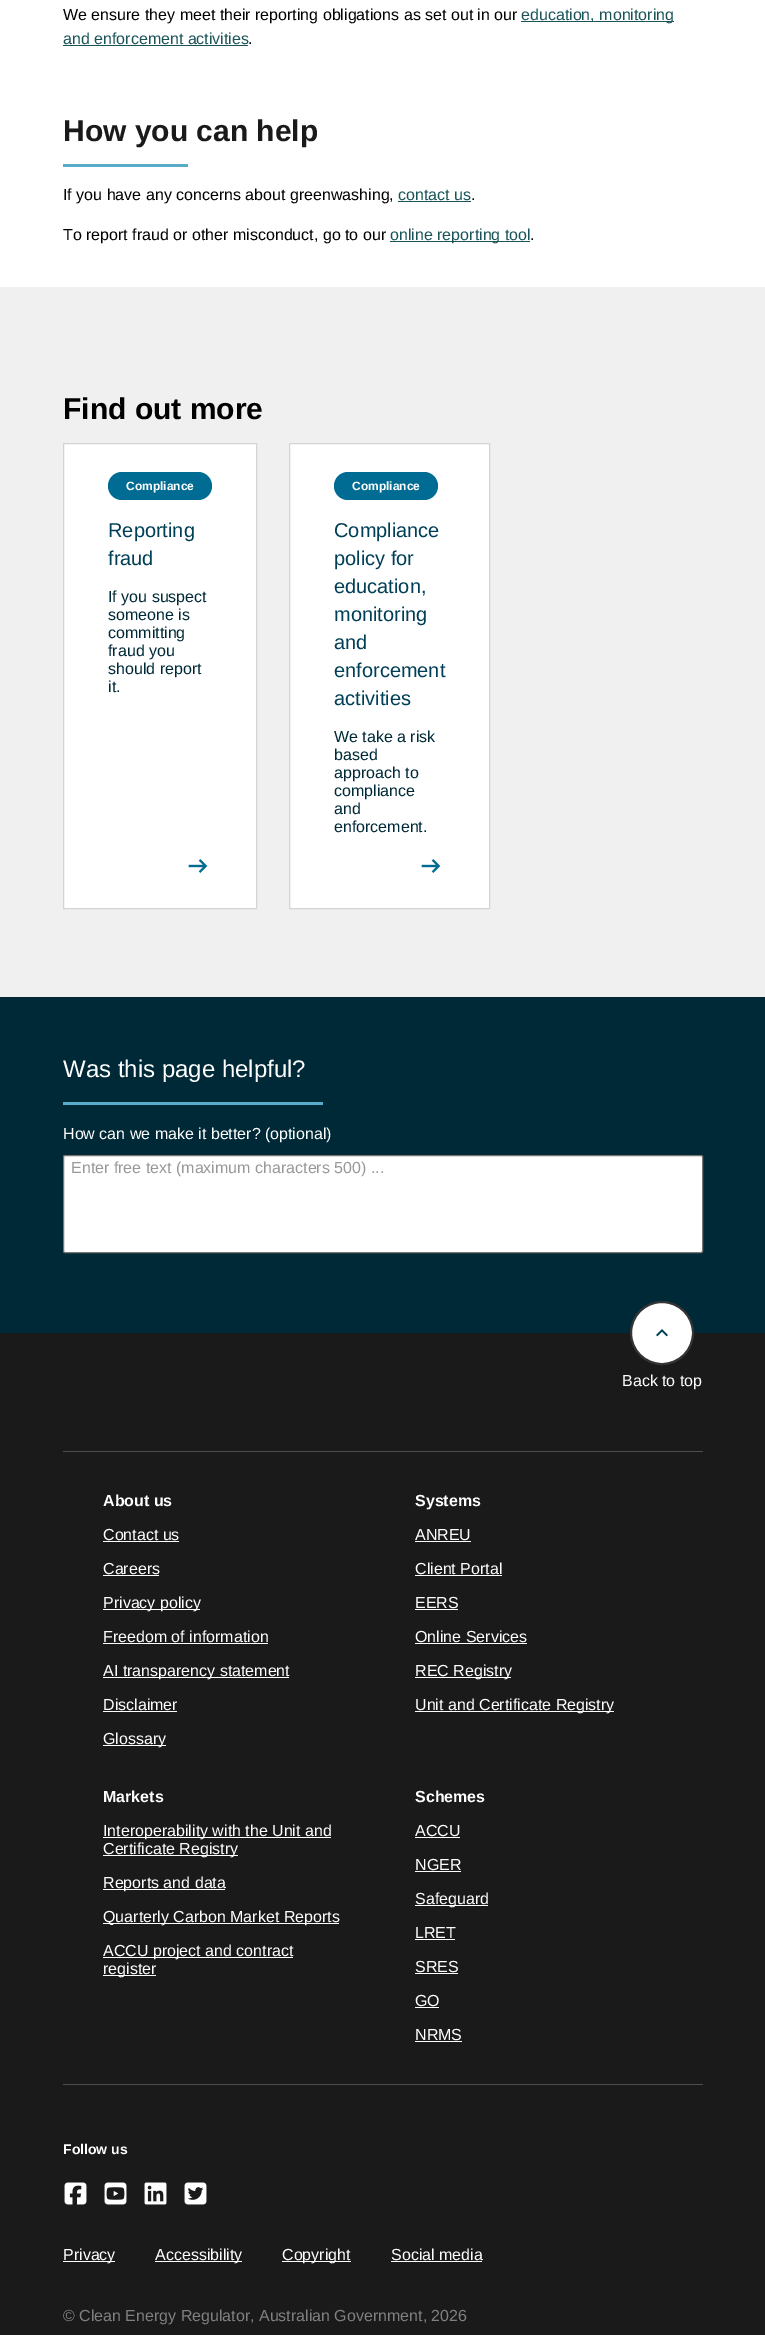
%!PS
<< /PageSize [765 2335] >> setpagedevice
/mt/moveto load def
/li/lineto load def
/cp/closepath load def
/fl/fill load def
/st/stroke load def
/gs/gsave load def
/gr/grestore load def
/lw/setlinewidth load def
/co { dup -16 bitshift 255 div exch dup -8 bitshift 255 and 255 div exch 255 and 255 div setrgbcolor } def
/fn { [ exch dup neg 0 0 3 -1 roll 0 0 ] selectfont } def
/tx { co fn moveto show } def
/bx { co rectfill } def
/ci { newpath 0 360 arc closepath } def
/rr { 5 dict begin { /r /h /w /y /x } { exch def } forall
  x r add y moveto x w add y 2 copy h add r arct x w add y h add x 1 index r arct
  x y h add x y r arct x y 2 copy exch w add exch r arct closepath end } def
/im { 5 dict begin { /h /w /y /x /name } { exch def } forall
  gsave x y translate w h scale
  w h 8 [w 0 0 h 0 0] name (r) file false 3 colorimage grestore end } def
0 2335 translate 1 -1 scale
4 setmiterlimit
0 0 765 2335 16#FFFFFF bx
521 21 153 1 16#1A5459 bx
63 45 185 1 16#1A5459 bx
63 164 125 3 16#58ACCA bx
398 201 73 1 16#1A5459 bx
390 241 140 1 16#1A5459 bx
0 287 765 710 16#F0F0F0 bx
16#FFFFFF co
63.5 443.5 mt 256.5 443.5 li 256.5 908.5 li 63.5 908.5 li cp gs fl gr
16#D4D4D4 co
st
16#006C93 co
108 472 104 28 14 rr fl
(media/1.raw) 188 859 20 14 im
16#FFFFFF co
289.5 443.5 mt 489.5 443.5 li 489.5 908.5 li 289.5 908.5 li cp gs fl gr
16#D4D4D4 co
st
16#006C93 co
334 472 104 28 14 rr fl
(media/1.raw) 421 859 20 14 im
0 997 765 336 16#002937 bx
63 1102 260 3 16#58ACCA bx
16#FFFFFF co
63.5 1155.5 639 97 1.5 rr gs fl gr
16#767676 co
st
0 1333 765 1002 16#1A1A1A bx
16#FFFFFF co
662 1333 31 ci gs fl gr
16#343434 co
2 lw
st
(media/2.raw) 656 1329 12 8 im
63 1451 640 1 16#4D4D4D bx
103 1541 76 1 16#FFFFFF bx
103 1575 56 1 16#FFFFFF bx
103 1609 97 1 16#FFFFFF bx
103 1643 165 1 16#FFFFFF bx
103 1677 186 1 16#FFFFFF bx
103 1711 74 1 16#FFFFFF bx
103 1745 63 1 16#FFFFFF bx
415 1541 56 1 16#FFFFFF bx
415 1575 87 1 16#FFFFFF bx
415 1609 43 1 16#FFFFFF bx
415 1643 112 1 16#FFFFFF bx
415 1677 96 1 16#FFFFFF bx
415 1711 199 1 16#FFFFFF bx
103 1837 228 1 16#FFFFFF bx
103 1855 135 1 16#FFFFFF bx
103 1889 122 1 16#FFFFFF bx
103 1923 236 1 16#FFFFFF bx
103 1957 190 1 16#FFFFFF bx
103 1975 53 1 16#FFFFFF bx
415 1837 45 1 16#FFFFFF bx
415 1871 46 1 16#FFFFFF bx
415 1905 73 1 16#FFFFFF bx
415 1939 40 1 16#FFFFFF bx
415 1973 43 1 16#FFFFFF bx
415 2007 24 1 16#FFFFFF bx
415 2041 47 1 16#FFFFFF bx
63 2084 640 1 16#4D4D4D bx
(media/3.raw) 64 2182 23 23 im
(media/4.raw) 104 2182 23 23 im
(media/5.raw) 144 2182 23 23 im
(media/6.raw) 184 2182 23 23 im
63 2261 52 1 16#FFFFFF bx
155 2261 87 1 16#FFFFFF bx
282 2261 69 1 16#FFFFFF bx
391 2261 91 1 16#FFFFFF bx
(We ensure they meet their reporting obligations as set out in our) 63 20 /LiberationSans-Regular 16 16#000000 tx
(education, monitoring) 521 20 /LiberationSans-Regular 16 16#1A5459 tx
(and enforcement activities) 63 44 /LiberationSans-Regular 16 16#1A5459 tx
(.) 248 44 /LiberationSans-Regular 16 16#000000 tx
(How you can help) 63 141 /LiberationSans-Bold 30 16#1A1A1A tx
(If you have any concerns about greenwashing,) 63 200 /LiberationSans-Regular 16 16#000000 tx
(contact us) 398 200 /LiberationSans-Regular 16 16#1A5459 tx
(.) 471 200 /LiberationSans-Regular 16 16#000000 tx
(To report fraud or other misconduct, go to our) 63 240 /LiberationSans-Regular 16 16#000000 tx
(online reporting tool) 390 240 /LiberationSans-Regular 16 16#1A5459 tx
(.) 530 240 /LiberationSans-Regular 16 16#000000 tx
(Find out more) 63 419 /LiberationSans-Bold 30 16#000000 tx
(Compliance) 126 490 /LiberationSans-Bold 12 16#FFFFFF tx
(Reporting) 108 537 /LiberationSans-Regular 20 16#003F56 tx
(fraud) 108 565 /LiberationSans-Regular 20 16#003F56 tx
(If you suspect) 108 602 /LiberationSans-Regular 16 16#002937 tx
(someone is) 108 620 /LiberationSans-Regular 16 16#002937 tx
(committing) 108 638 /LiberationSans-Regular 16 16#002937 tx
(fraud you) 108 656 /LiberationSans-Regular 16 16#002937 tx
(should report) 108 674 /LiberationSans-Regular 16 16#002937 tx
(it.) 108 692 /LiberationSans-Regular 16 16#002937 tx
(Compliance) 352 490 /LiberationSans-Bold 12 16#FFFFFF tx
(Compliance) 334 537 /LiberationSans-Regular 20 16#003F56 tx
(policy for) 334 565 /LiberationSans-Regular 20 16#003F56 tx
(education,) 334 593 /LiberationSans-Regular 20 16#003F56 tx
(monitoring) 334 621 /LiberationSans-Regular 20 16#003F56 tx
(and) 334 649 /LiberationSans-Regular 20 16#003F56 tx
(enforcement) 334 677 /LiberationSans-Regular 20 16#003F56 tx
(activities) 334 705 /LiberationSans-Regular 20 16#003F56 tx
(We take a risk) 334 742 /LiberationSans-Regular 16 16#002937 tx
(based) 334 760 /LiberationSans-Regular 16 16#002937 tx
(approach to) 334 778 /LiberationSans-Regular 16 16#002937 tx
(compliance) 334 796 /LiberationSans-Regular 16 16#002937 tx
(and) 334 814 /LiberationSans-Regular 16 16#002937 tx
(enforcement.) 334 832 /LiberationSans-Regular 16 16#002937 tx
(Was this page helpful?) 63 1077 /LiberationSans-Regular 24 16#FFFFFF tx
(How can we make it better? \(optional\)) 63 1139 /LiberationSans-Regular 16 16#FFFFFF tx
(Enter free text \(maximum characters 500\) ...) 71 1173 /LiberationSans-Regular 16 16#989898 tx
(Back to top) 622 1386 /LiberationSans-Regular 16 16#FFFFFF tx
(About us) 103 1506 /LiberationSans-Bold 16 16#FFFFFF tx
(Contact us) 103 1540 /LiberationSans-Regular 16 16#FFFFFF tx
(Careers) 103 1574 /LiberationSans-Regular 16 16#FFFFFF tx
(Privacy policy) 103 1608 /LiberationSans-Regular 16 16#FFFFFF tx
(Freedom of information) 103 1642 /LiberationSans-Regular 16 16#FFFFFF tx
(AI transparency statement) 103 1676 /LiberationSans-Regular 16 16#FFFFFF tx
(Disclaimer) 103 1710 /LiberationSans-Regular 16 16#FFFFFF tx
(Glossary) 103 1744 /LiberationSans-Regular 16 16#FFFFFF tx
(Systems) 415 1506 /LiberationSans-Bold 16 16#FFFFFF tx
(ANREU) 415 1540 /LiberationSans-Regular 16 16#FFFFFF tx
(Client Portal) 415 1574 /LiberationSans-Regular 16 16#FFFFFF tx
(EERS) 415 1608 /LiberationSans-Regular 16 16#FFFFFF tx
(Online Services) 415 1642 /LiberationSans-Regular 16 16#FFFFFF tx
(REC Registry) 415 1676 /LiberationSans-Regular 16 16#FFFFFF tx
(Unit and Certificate Registry) 415 1710 /LiberationSans-Regular 16 16#FFFFFF tx
(Markets) 103 1802 /LiberationSans-Bold 16 16#FFFFFF tx
(Interoperability with the Unit and) 103 1836 /LiberationSans-Regular 16 16#FFFFFF tx
(Certificate Registry) 103 1854 /LiberationSans-Regular 16 16#FFFFFF tx
(Reports and data) 103 1888 /LiberationSans-Regular 16 16#FFFFFF tx
(Quarterly Carbon Market Reports) 103 1922 /LiberationSans-Regular 16 16#FFFFFF tx
(ACCU project and contract) 103 1956 /LiberationSans-Regular 16 16#FFFFFF tx
(register) 103 1974 /LiberationSans-Regular 16 16#FFFFFF tx
(Schemes) 415 1802 /LiberationSans-Bold 16 16#FFFFFF tx
(ACCU) 415 1836 /LiberationSans-Regular 16 16#FFFFFF tx
(NGER) 415 1870 /LiberationSans-Regular 16 16#FFFFFF tx
(Safeguard) 415 1904 /LiberationSans-Regular 16 16#FFFFFF tx
(LRET) 415 1938 /LiberationSans-Regular 16 16#FFFFFF tx
(SRES) 415 1972 /LiberationSans-Regular 16 16#FFFFFF tx
(GO) 415 2006 /LiberationSans-Regular 16 16#FFFFFF tx
(NRMS) 415 2040 /LiberationSans-Regular 16 16#FFFFFF tx
(Follow us) 63 2154 /LiberationSans-Bold 14 16#FFFFFF tx
(Privacy) 63 2260 /LiberationSans-Regular 16 16#FFFFFF tx
(Accessibility) 155 2260 /LiberationSans-Regular 16 16#FFFFFF tx
(Copyright) 282 2260 /LiberationSans-Regular 16 16#FFFFFF tx
(Social media) 391 2260 /LiberationSans-Regular 16 16#FFFFFF tx
(© Clean Energy Regulator, Australian Government, 2026) 63 2321 /LiberationSans-Regular 16 16#808080 tx
showpage
